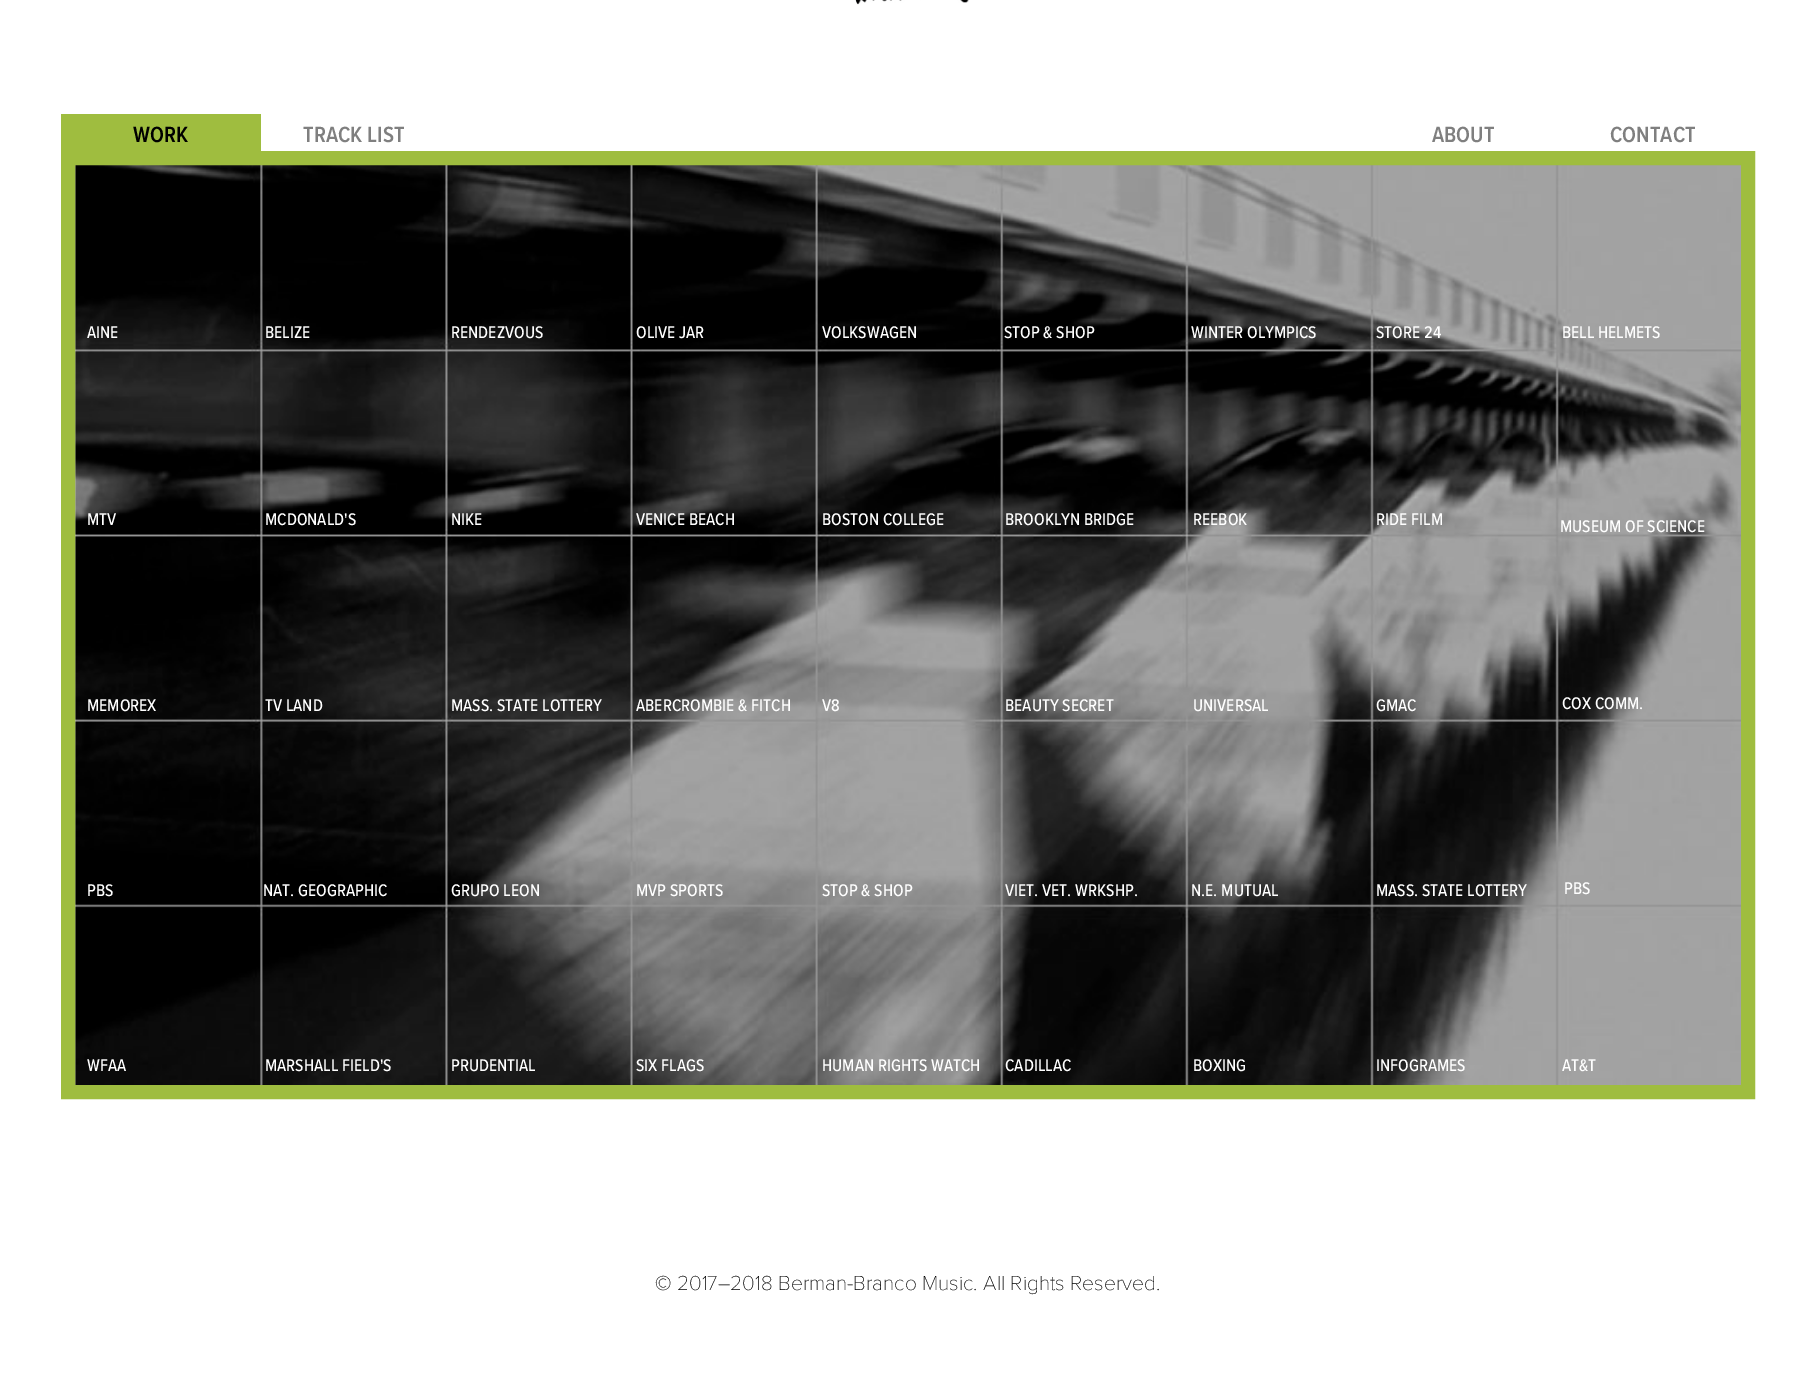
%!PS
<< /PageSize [1814 1400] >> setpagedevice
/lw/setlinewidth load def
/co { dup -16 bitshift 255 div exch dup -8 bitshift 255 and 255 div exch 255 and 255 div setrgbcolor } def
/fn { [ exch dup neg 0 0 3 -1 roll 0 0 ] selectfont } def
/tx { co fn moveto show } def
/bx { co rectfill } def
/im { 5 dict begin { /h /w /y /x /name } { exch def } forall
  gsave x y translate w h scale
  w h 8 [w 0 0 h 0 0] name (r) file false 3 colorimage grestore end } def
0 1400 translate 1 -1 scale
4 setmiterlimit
0 0 1814 1400 16#FFFFFF bx
(media/1.raw) 855 0 114 5 im
61 114 200 37 16#9FBD3F bx
(media/2.raw) 75 165 1666 920 im
14 lw
68 158 1680 934 rectstroke
(WORK) 133 142 /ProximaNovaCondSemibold-SemiBold 22.75 16#000000 tx
(TRACK LIST) 303 142 /ProximaNovaCondSemibold-SemiBold 22.75 16#7F7F7F tx
(ABOUT) 1432 142 /ProximaNovaCondSemibold-SemiBold 22.75 16#7F7F7F tx
(CONTACT) 1610 142 /ProximaNovaCondSemibold-SemiBold 22.75 16#7F7F7F tx
(AINE) 87 338 /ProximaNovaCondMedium-Medium 17.5 16#FFFFFF tx
(BELIZE) 265 338 /ProximaNovaCondMedium-Medium 17.5 16#FFFFFF tx
(RENDEZVOUS) 451 338 /ProximaNovaCondMedium-Medium 17.5 16#FFFFFF tx
(OLIVE JAR) 636 338 /ProximaNovaCondMedium-Medium 17.5 16#FFFFFF tx
(VOLKSWAGEN) 822 338 /ProximaNovaCondMedium-Medium 17.5 16#FFFFFF tx
(STOP & SHOP) 1004 338 /ProximaNovaCondMedium-Medium 17.5 16#FFFFFF tx
(WINTER OLYMPICS) 1191 338 /ProximaNovaCondMedium-Medium 17.5 16#FFFFFF tx
(STORE 24) 1376 338 /ProximaNovaCondMedium-Medium 17.5 16#FFFFFF tx
(BELL HELMETS) 1562 338 /ProximaNovaCondMedium-Medium 17.5 16#FFFFFF tx
(MTV) 87 525 /ProximaNovaCondMedium-Medium 17.5 16#FFFFFF tx
(MCDONALD'S) 265 525 /ProximaNovaCondMedium-Medium 17.5 16#FFFFFF tx
(NIKE) 451 525 /ProximaNovaCondMedium-Medium 17.5 16#FFFFFF tx
(VENICE BEACH) 636 525 /ProximaNovaCondMedium-Medium 17.5 16#FFFFFF tx
(BOSTON COLLEGE) 822 525 /ProximaNovaCondMedium-Medium 17.5 16#FFFFFF tx
(BROOKLYN BRIDGE) 1005 525 /ProximaNovaCondMedium-Medium 17.5 16#FFFFFF tx
(REEBOK) 1193 525 /ProximaNovaCondMedium-Medium 17.5 16#FFFFFF tx
(RIDE FILM) 1376 525 /ProximaNovaCondMedium-Medium 17.5 16#FFFFFF tx
(MUSEUM OF SCIENCE) 1560 532 /ProximaNovaCondMedium-Medium 17.5 16#FFFFFF tx
(MEMOREX) 87 711 /ProximaNovaCondMedium-Medium 17.5 16#FFFFFF tx
(TV LAND) 265 711 /ProximaNovaCondMedium-Medium 17.5 16#FFFFFF tx
(MASS. STATE LOTTERY) 451 711 /ProximaNovaCondMedium-Medium 17.5 16#FFFFFF tx
(ABERCROMBIE & FITCH) 636 711 /ProximaNovaCondMedium-Medium 17.5 16#FFFFFF tx
(V8) 822 711 /ProximaNovaCondMedium-Medium 17.5 16#FFFFFF tx
(BEAUTY SECRET) 1005 711 /ProximaNovaCondMedium-Medium 17.5 16#FFFFFF tx
(UNIVERSAL) 1193 711 /ProximaNovaCondMedium-Medium 17.5 16#FFFFFF tx
(GMAC) 1376 711 /ProximaNovaCondMedium-Medium 17.5 16#FFFFFF tx
(COX COMM.) 1562 709 /ProximaNovaCondMedium-Medium 17.5 16#FFFFFF tx
(PBS) 87 896 /ProximaNovaCondMedium-Medium 17.5 16#FFFFFF tx
(NAT. GEOGRAPHIC) 263 896 /ProximaNovaCondMedium-Medium 17.5 16#FFFFFF tx
(GRUPO LEON) 451 896 /ProximaNovaCondMedium-Medium 17.5 16#FFFFFF tx
(MVP SPORTS) 636 896 /ProximaNovaCondMedium-Medium 17.5 16#FFFFFF tx
(STOP & SHOP) 822 896 /ProximaNovaCondMedium-Medium 17.5 16#FFFFFF tx
(VIET. VET. WRKSHP.) 1005 896 /ProximaNovaCondMedium-Medium 17.5 16#FFFFFF tx
(N.E. MUTUAL) 1191 896 /ProximaNovaCondMedium-Medium 17.5 16#FFFFFF tx
(MASS. STATE LOTTERY) 1376 896 /ProximaNovaCondMedium-Medium 17.5 16#FFFFFF tx
(PBS) 1564 894 /ProximaNovaCondMedium-Medium 17.5 16#FFFFFF tx
(WFAA) 87 1071 /ProximaNovaCondMedium-Medium 17.5 16#FFFFFF tx
(MARSHALL FIELD'S) 265 1071 /ProximaNovaCondMedium-Medium 17.5 16#FFFFFF tx
(PRUDENTIAL) 451 1071 /ProximaNovaCondMedium-Medium 17.5 16#FFFFFF tx
(SIX FLAGS) 636 1071 /ProximaNovaCondMedium-Medium 17.5 16#FFFFFF tx
(HUMAN RIGHTS WATCH) 822 1071 /ProximaNovaCondMedium-Medium 17.5 16#FFFFFF tx
(CADILLAC) 1005 1071 /ProximaNovaCondMedium-Medium 17.5 16#FFFFFF tx
(BOXING) 1193 1071 /ProximaNovaCondMedium-Medium 17.5 16#FFFFFF tx
(INFOGRAMES) 1376 1071 /ProximaNovaCondMedium-Medium 17.5 16#FFFFFF tx
(AT&T) 1562 1071 /ProximaNovaCondMedium-Medium 17.5 16#FFFFFF tx
(© 2017–2018 Berman-Branco Music. All Rights Reserved.) 655 1290 /ProximaNova-Thin 21 16#000000 tx
showpage
